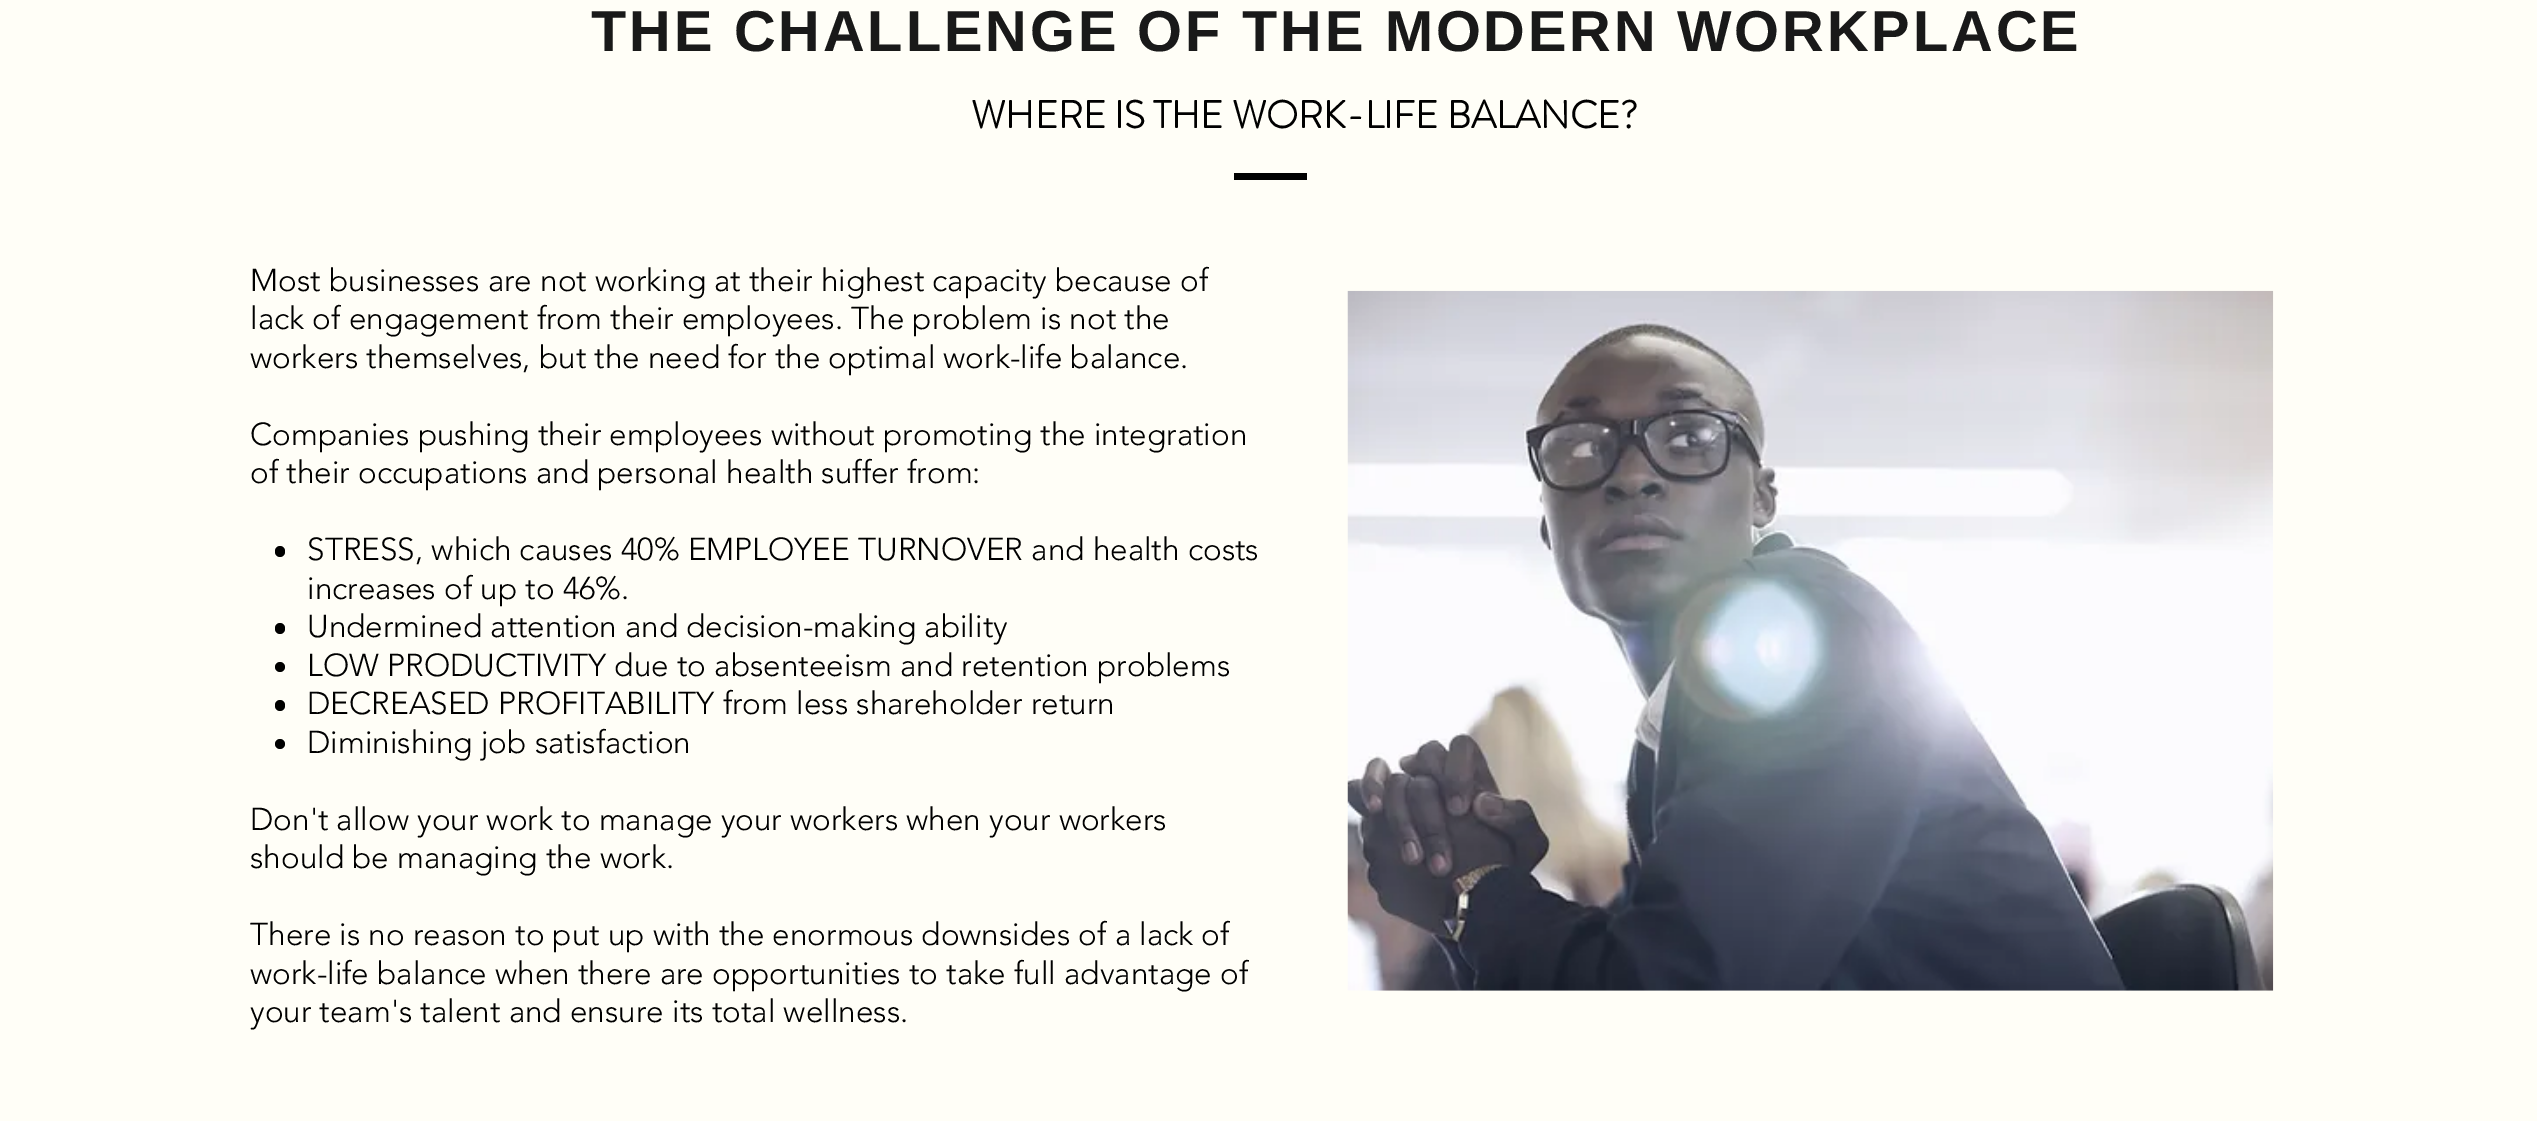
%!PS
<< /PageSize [2537 1121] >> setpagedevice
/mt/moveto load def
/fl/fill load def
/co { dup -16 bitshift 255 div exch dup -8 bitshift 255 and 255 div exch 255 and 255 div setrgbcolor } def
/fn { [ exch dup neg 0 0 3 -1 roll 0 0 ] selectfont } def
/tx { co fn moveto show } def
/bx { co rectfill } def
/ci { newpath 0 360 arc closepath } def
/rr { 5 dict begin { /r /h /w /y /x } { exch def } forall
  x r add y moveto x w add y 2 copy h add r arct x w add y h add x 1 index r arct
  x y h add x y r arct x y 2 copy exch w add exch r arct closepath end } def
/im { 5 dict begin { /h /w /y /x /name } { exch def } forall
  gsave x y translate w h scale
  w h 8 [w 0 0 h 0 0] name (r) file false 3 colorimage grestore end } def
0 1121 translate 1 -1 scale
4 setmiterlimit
0 0 2537 1121 16#FFFEF7 bx
1234 173 73 7 16#000000 bx
275 546 10 11 5 rr fl
275 623 10 11 5 rr fl
280 667 5 ci fl
275 700 10 11 5 rr fl
280 744 5 ci fl
(media/1.raw) 1347 290 927 701 im
/LiberationSans-Bold 57.75 fn
16#191919 co
591 51 mt -.5 0 32 2.9 0 (THE CHALLENGE OF THE MODERN WORKPLACE) awidthshow
(WHERE IS THE WORK-LIFE BALANCE?) 971 128 /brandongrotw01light-Bold 38.5 16#000000 tx
(Most businesses are not working at their highest capacity because of) 250 291 /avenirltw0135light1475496-Light 31.5 16#000000 tx
(lack of engagement from their employees. The problem is not the) 250 329 /avenirltw0135light1475496-Light 31.5 16#000000 tx
(workers themselves, but the need for the optimal work-life balance.) 250 368 /avenirltw0135light1475496-Light 31.5 16#000000 tx
(Companies pushing their employees without promoting the integration) 250 445 /avenirltw0135light1475496-Light 31.5 16#000000 tx
(of their occupations and personal health suffer from:) 250 483 /avenirltw0135light1475496-Light 31.5 16#000000 tx
(STRESS, which causes 40% EMPLOYEE TURNOVER and health costs) 307 560 /avenirltw0135light1475496-Light 31.5 16#000000 tx
(increases of up to 46%.) 307 599 /avenirltw0135light1475496-Light 31.5 16#000000 tx
(Undermined attention and decision-making ability) 307 637 /avenirltw0135light1475496-Light 31.5 16#000000 tx
(LOW PRODUCTIVITY due to absenteeism and retention problems) 307 676 /avenirltw0135light1475496-Light 31.5 16#000000 tx
(DECREASED PROFITABILITY from less shareholder return) 307 714 /avenirltw0135light1475496-Light 31.5 16#000000 tx
(Diminishing job satisfaction) 307 753 /avenirltw0135light1475496-Light 31.5 16#000000 tx
(Don't allow your work to manage your workers when your workers) 250 830 /avenirltw0135light1475496-Light 31.5 16#000000 tx
(should be managing the work.) 250 868 /avenirltw0135light1475496-Light 31.5 16#000000 tx
(There is no reason to put up with the enormous downsides of a lack of) 250 945 /avenirltw0135light1475496-Light 31.5 16#000000 tx
(work-life balance when there are opportunities to take full advantage of) 250 984 /avenirltw0135light1475496-Light 31.5 16#000000 tx
(your team's talent and ensure its total wellness.) 250 1022 /avenirltw0135light1475496-Light 31.5 16#000000 tx
showpage
